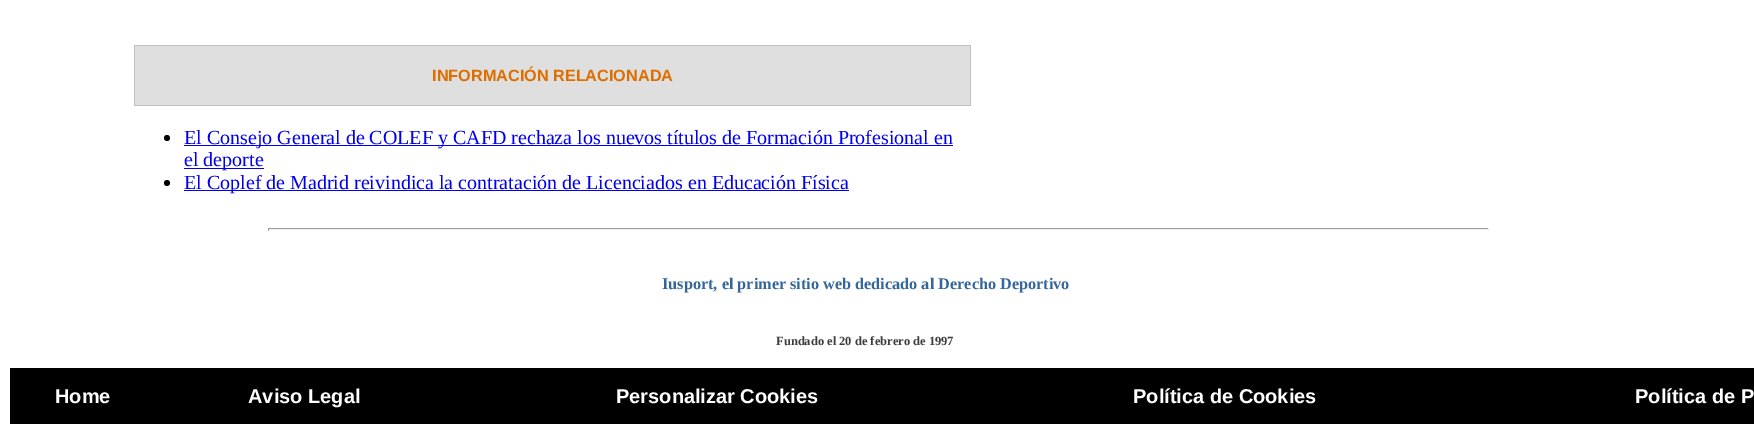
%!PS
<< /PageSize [1754 433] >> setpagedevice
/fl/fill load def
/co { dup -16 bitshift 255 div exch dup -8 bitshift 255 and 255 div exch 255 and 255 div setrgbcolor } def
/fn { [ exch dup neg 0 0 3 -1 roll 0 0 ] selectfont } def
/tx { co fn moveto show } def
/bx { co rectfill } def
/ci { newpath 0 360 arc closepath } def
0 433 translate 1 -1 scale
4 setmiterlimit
0 0 1754 433 16#FFFFFF bx
135 46 835 59 16#DFDFDF bx
134 45 837 1 16#C0C0C0 bx
970 45 1 61 16#C0C0C0 bx
134 105 837 1 16#C0C0C0 bx
134 45 1 61 16#C0C0C0 bx
16#000000 co
167 138 3 ci fl
184 145 769 1 16#0000EE bx
184 168 80 1 16#0000EE bx
16#000000 co
167 183 3 ci fl
184 190 665 1 16#0000EE bx
268 228 1221 1 16#9F9F9F bx
1488 228 1 3 16#EEEEEE bx
268 229 1221 1 16#EEEEEE bx
268 228 1 3 16#9F9F9F bx
10 368 1744 56 16#000000 bx
(INFORMACIÓN RELACIONADA) 432 81 /LiberationSans-Bold 16.25 16#DD6F00 tx
(El Consejo General de COLEF y CAFD rechaza los nuevos títulos de Formación Profesional en) 184 144 /LiberationSerif-Regular 20 16#0000EE tx
(el deporte) 184 166 /LiberationSerif-Regular 20 16#0000EE tx
(El Coplef de Madrid reivindica la contratación de Licenciados en Educación Física) 184 189 /LiberationSerif-Regular 20 16#0000EE tx
(Iusport, el primer sitio web dedicado al Derecho Deportivo) 662 289 /LiberationSerif-Bold 16.25 16#336699 tx
(Fundado el 20 de febrero de 1997) 776 345 /LiberationSerif-Bold 12.5 16#3C3C3C tx
(Home) 55 403 /LiberationSans-Bold 20 16#FFFFFF tx
(Aviso Legal) 248 403 /LiberationSans-Bold 20 16#FFFFFF tx
(Personalizar Cookies) 616 403 /LiberationSans-Bold 20 16#FFFFFF tx
(Política de Cookies) 1133 403 /LiberationSans-Bold 20 16#FFFFFF tx
(Política de P) 1635 403 /LiberationSans-Bold 20 16#FFFFFF tx
showpage
